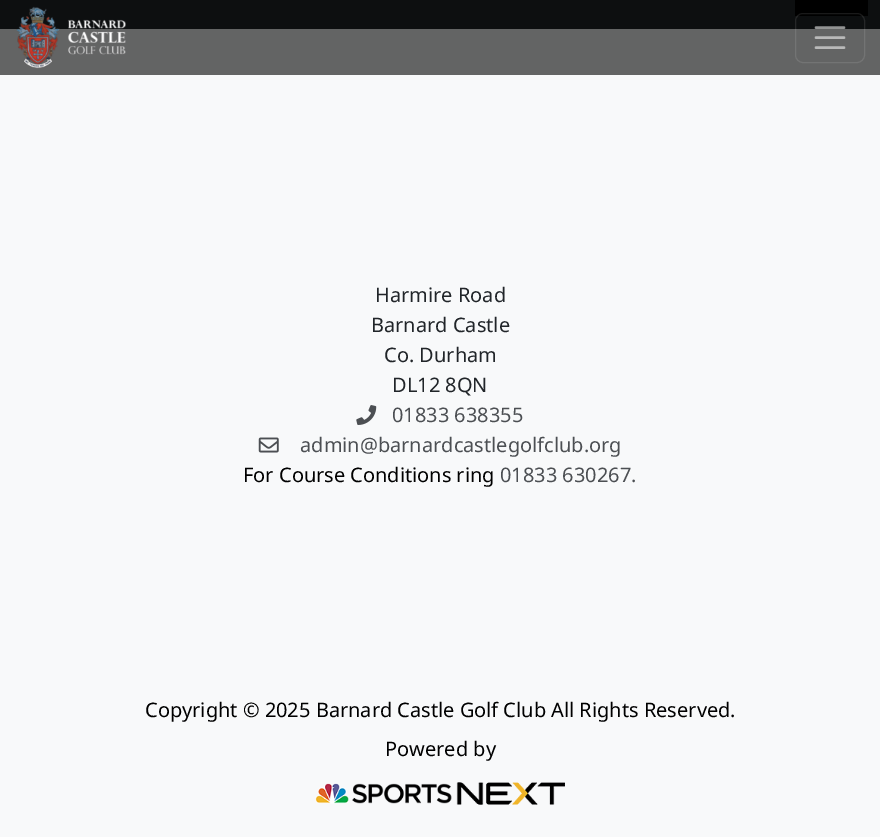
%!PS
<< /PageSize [880 837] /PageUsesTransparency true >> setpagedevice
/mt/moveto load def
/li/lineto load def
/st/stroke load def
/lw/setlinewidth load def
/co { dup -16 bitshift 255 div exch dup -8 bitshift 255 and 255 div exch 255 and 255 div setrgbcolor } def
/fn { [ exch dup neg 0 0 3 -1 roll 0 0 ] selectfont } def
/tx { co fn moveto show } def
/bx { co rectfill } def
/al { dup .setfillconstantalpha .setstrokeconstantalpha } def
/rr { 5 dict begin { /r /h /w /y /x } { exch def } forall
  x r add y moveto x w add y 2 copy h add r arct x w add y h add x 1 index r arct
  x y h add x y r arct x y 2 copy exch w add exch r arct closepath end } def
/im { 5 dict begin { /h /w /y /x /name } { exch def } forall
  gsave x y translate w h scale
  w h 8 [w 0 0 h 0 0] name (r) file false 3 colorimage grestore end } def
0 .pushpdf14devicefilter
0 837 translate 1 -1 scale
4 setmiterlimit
0 0 880 837 16#0D0F10 bx
0 29 880 46 16#636464 bx
(media/1.raw) 16 6 110 63 im
795 0 73 16 16#000000 bx
0.1 al
16#FFFFFF co
795.5 13.5 69 49 7.5 rr st
0.55 al
2.5 lw
1 setlinecap
816 27.5 mt 844 27.5 li 816 37.5 mt 844 37.5 li 816 47.5 mt 844 47.5 li st
1 al
0 75 880 762 16#F8F9FA bx
(media/2.raw) 356 405 21 20 im
(media/3.raw) 258 437 21 16 im
(media/4.raw) 315 782 250 23 im
(Harmire Road) 375 302 /NotoSans-Regular 20 16#212529 tx
(Barnard Castle) 371 332 /NotoSans-Regular 20 16#212529 tx
(Co. Durham) 384 362 /NotoSans-Regular 20 16#212529 tx
(DL12 8QN) 392 392 /NotoSans-Regular 20 16#212529 tx
(01833 638355) 392 422 /NotoSans-Regular 20 16#4C4F53 tx
(admin@barnardcastlegolfclub.org) 300 452 /NotoSans-Regular 20 16#4C4F53 tx
(For Course Conditions ring) 243 482 /NotoSans-Regular 20 16#000000 tx
(01833 630267.) 500 482 /NotoSans-Regular 20 16#4C4F53 tx
(Copyright © 2025 Barnard Castle Golf Club All Rights Reserved.) 145 717 /NotoSans-Regular 20 16#000000 tx
(Powered by) 385 756 /NotoSans-Regular 20 16#000000 tx
.poppdf14devicefilter showpage
